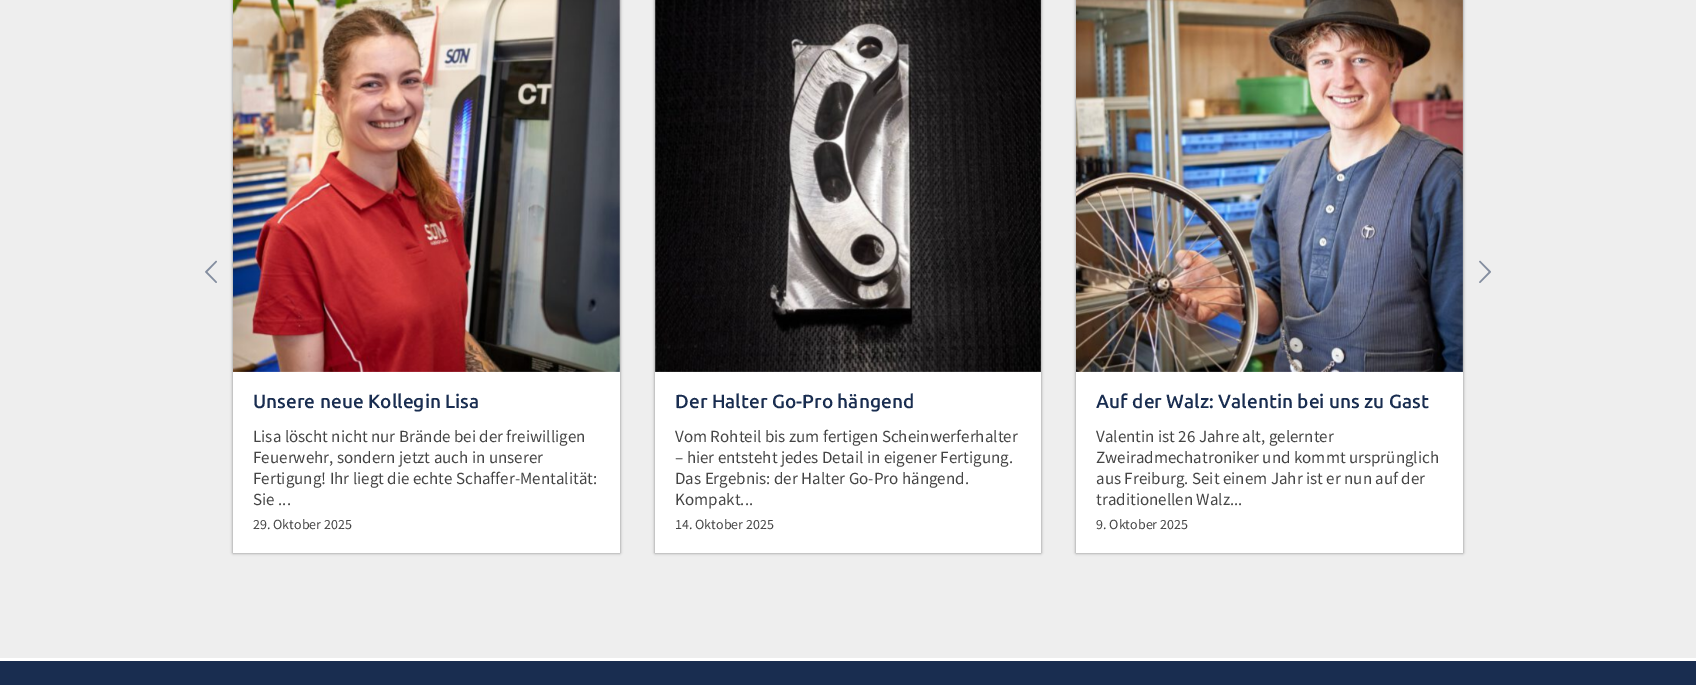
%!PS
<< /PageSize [1696 685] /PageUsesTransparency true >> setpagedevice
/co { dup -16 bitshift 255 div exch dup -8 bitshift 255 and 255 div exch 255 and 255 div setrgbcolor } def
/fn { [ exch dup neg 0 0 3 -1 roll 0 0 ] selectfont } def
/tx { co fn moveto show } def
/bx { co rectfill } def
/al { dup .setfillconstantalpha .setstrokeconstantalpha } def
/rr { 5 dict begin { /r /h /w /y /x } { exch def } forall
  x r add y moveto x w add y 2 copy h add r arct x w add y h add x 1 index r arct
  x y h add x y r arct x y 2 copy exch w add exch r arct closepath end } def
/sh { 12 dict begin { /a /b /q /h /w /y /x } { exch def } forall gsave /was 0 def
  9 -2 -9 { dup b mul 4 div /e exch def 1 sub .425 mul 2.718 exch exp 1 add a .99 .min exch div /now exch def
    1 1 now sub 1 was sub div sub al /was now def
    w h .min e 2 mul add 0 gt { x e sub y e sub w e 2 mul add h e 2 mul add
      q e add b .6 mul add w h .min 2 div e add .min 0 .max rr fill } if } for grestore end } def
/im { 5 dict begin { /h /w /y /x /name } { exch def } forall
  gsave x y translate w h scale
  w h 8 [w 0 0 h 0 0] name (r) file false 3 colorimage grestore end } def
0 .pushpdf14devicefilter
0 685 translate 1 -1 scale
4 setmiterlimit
0 0 1696 685 16#192D50 bx
0 0 1696 658 16#EEEEEE bx
(media/1.raw) 205 260 12 23 im
(media/2.raw) 1479 260 12 23 im
16#888888 co
233 -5 387 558 0 1.5 1 sh
233 0 387 553 16#FFFFFF bx
(media/3.raw) 233 0 387 372 im
16#888888 co
655 -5 386 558 0 1.5 1 sh
655 0 386 553 16#FFFFFF bx
(media/4.raw) 655 0 386 372 im
16#888888 co
1076 -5 387 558 0 1.5 1 sh
1076 0 387 553 16#FFFFFF bx
(media/5.raw) 1076 0 387 372 im
0 658 1696 3 16#FFFFFF bx
(Unsere neue Kollegin Lisa) 253 408 /Ubuntu-SemiBold 19 16#192D50 tx
(Lisa löscht nicht nur Brände bei der freiwilligen) 253 442 /SourceSansPro-Regular 17 16#444444 tx
(Feuerwehr, sondern jetzt auch in unserer) 253 463 /SourceSansPro-Regular 17 16#444444 tx
(Fertigung! Ihr liegt die echte Schaffer-Mentalität:) 253 484 /SourceSansPro-Regular 17 16#444444 tx
(Sie ...) 253 505 /SourceSansPro-Regular 17 16#444444 tx
(29. Oktober 2025) 253 529 /SourceSansPro-Regular 14 16#444444 tx
(Der Halter Go-Pro hängend) 675 408 /Ubuntu-SemiBold 19 16#192D50 tx
(Vom Rohteil bis zum fertigen Scheinwerferhalter) 675 442 /SourceSansPro-Regular 17 16#444444 tx
(– hier entsteht jedes Detail in eigener Fertigung.) 675 463 /SourceSansPro-Regular 17 16#444444 tx
(Das Ergebnis: der Halter Go-Pro hängend.) 675 484 /SourceSansPro-Regular 17 16#444444 tx
(Kompakt...) 675 505 /SourceSansPro-Regular 17 16#444444 tx
(14. Oktober 2025) 675 529 /SourceSansPro-Regular 14 16#444444 tx
(Auf der Walz: Valentin bei uns zu Gast) 1096 408 /Ubuntu-SemiBold 19 16#192D50 tx
(Valentin ist 26 Jahre alt, gelernter) 1096 442 /SourceSansPro-Regular 17 16#444444 tx
(Zweiradmechatroniker und kommt ursprünglich) 1096 463 /SourceSansPro-Regular 17 16#444444 tx
(aus Freiburg. Seit einem Jahr ist er nun auf der) 1096 484 /SourceSansPro-Regular 17 16#444444 tx
(traditionellen Walz...) 1096 505 /SourceSansPro-Regular 17 16#444444 tx
(9. Oktober 2025) 1096 529 /SourceSansPro-Regular 14 16#444444 tx
.poppdf14devicefilter showpage
